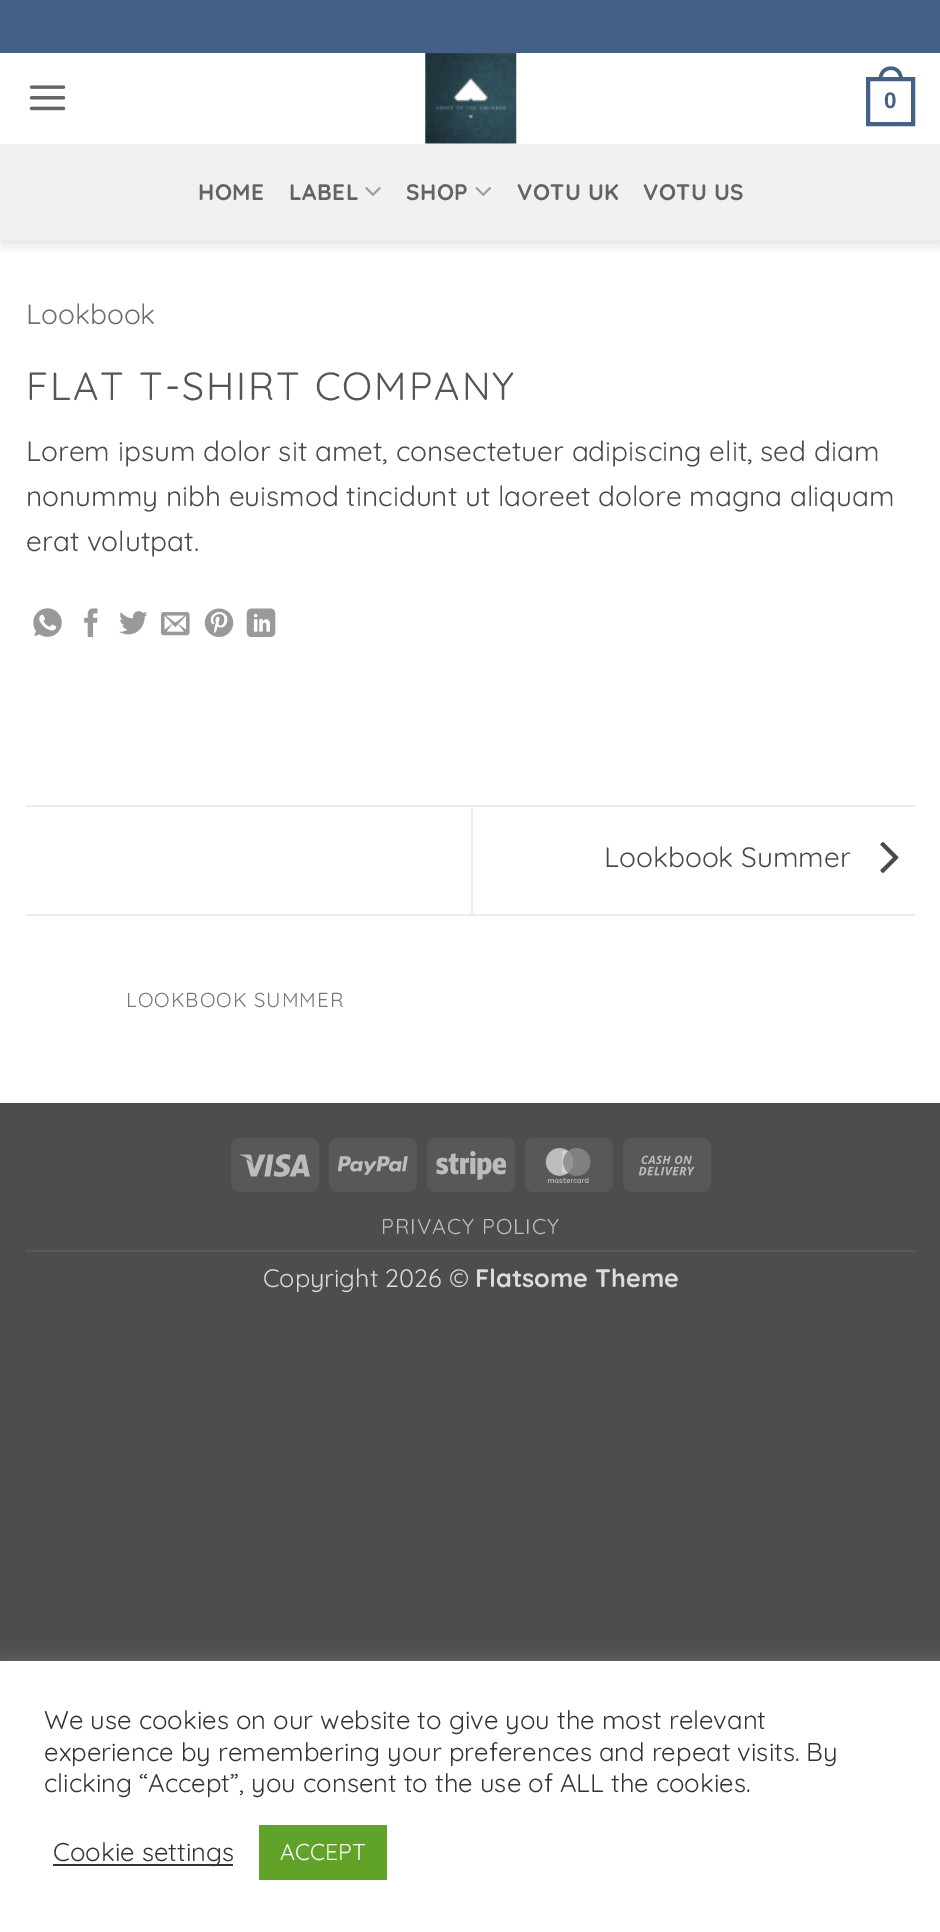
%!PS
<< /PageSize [940 1932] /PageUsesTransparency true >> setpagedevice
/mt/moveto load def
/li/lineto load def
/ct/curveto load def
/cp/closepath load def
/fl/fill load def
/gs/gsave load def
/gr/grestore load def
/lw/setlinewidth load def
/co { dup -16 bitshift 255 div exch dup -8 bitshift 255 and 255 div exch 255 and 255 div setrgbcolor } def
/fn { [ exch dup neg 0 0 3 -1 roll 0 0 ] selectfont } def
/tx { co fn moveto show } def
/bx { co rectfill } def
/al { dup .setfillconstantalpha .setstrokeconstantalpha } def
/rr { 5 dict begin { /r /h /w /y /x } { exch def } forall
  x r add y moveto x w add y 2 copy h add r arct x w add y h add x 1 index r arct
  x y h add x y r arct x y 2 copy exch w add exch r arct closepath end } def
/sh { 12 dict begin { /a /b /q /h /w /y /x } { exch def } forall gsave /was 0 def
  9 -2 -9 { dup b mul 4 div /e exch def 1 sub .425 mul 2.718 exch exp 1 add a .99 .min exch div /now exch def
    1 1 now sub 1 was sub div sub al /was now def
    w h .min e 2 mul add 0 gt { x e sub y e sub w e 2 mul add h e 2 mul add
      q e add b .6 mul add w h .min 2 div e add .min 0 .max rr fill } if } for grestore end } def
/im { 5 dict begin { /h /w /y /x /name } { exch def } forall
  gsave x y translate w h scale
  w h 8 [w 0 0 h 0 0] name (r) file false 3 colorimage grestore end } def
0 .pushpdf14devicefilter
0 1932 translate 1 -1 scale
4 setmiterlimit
0 0 940 1932 16#4D4D4D bx
0 53 940 1050 16#FFFFFF bx
gs
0 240 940 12 rectclip
16#000000 co
2 2 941 240 0 9 .15 sh
gr
0 0 940 53 16#446084 bx
(media/1.raw) 29 85 37 26 im
(media/2.raw) 425 53 92 91 im
4 lw
868 79 45 45 rectstroke
891 66.5 mt 899 66.5 903 73 903 80.5 ct 878.5 80.5 li 878.5 73 882.5 66.5 891 66.5 ct cp 891 70 mt 897 70 899.5 75 899.5 80.5 ct 882 80.5 li 882 75 884.5 70 891 70 ct cp eofill
0 144 940 96 16#F1F1F1 bx
(media/3.raw) 365 187 16 9 im
(media/4.raw) 475 187 16 9 im
(media/5.raw) 33 608 29 29 im
(media/6.raw) 84 608 14 30 im
(media/7.raw) 119 611 29 24 im
(media/8.raw) 161 612 29 24 im
(media/9.raw) 204 608 30 29 im
(media/10.raw) 246 608 30 30 im
26 805 889 2 16#ECECEC bx
26 914 889 2 16#ECECEC bx
471 807 2 107 16#ECECEC bx
(media/11.raw) 880 841 19 33 im
16#585858 co
231 1138 88 54 9 rr fl
(media/12.raw) 240 1154 70 23 im
329 1138 88 54 9 rr fl
(media/13.raw) 338 1156 70 19 im
427 1138 88 54 9 rr fl
(media/14.raw) 436 1151 70 29 im
525 1138 88 54 9 rr fl
(media/15.raw) 545 1148 46 35 im
623 1138 88 54 9 rr fl
(media/16.raw) 638 1155 57 21 im
26 1250 889 2 16#585858 bx
16#ACABAB co
0 1659 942 271 0 9 .3 sh
0 1661 940 271 16#FFFFFF bx
53 1864 180 2 16#333333 bx
259 1825 128 55 16#61A229 bx
(0) 884 108 /LiberationSans-Bold 22.5 16#446084 tx
/Quicksand-Bold 22.5 fn
16#636363 co
198 200 mt .5 0 (HOME) ashow
289 200 mt .5 0 (LABEL) ashow
406 200 mt .5 0 (SHOP) ashow
517 200 mt .5 0 (VOTU UK) ashow
643 200 mt .5 0 (VOTU US) ashow
(Lookbook) 26 324 /Quicksand-Regular 28 16#6E6E6E tx
/Quicksand-Regular 39.25 fn
16#555555 co
26 400 mt 2 0 (FLAT T-SHIRT COMPANY) ashow
(Lorem ipsum dolor sit amet, consectetuer adipiscing elit, sed diam) 26 461 /Quicksand-Regular 28 16#4A4A4A tx
(nonummy nibh euismod tincidunt ut laoreet dolore magna aliquam) 26 506 /Quicksand-Regular 28 16#4A4A4A tx
(erat volutpat.) 26 551 /Quicksand-Regular 28 16#4A4A4A tx
(Lookbook Summer) 604 867 /Quicksand-Regular 28 16#4A4A4A tx
/Quicksand-Regular 20.25 fn
16#777777 co
126 1007 mt 1 0 (LOOKBOOK SUMMER) ashow
/Quicksand-Regular 21.5 fn
16#BFBFBF co
381 1234 mt 1 0 (PRIVACY POLICY) ashow
(Copyright 2026 ©) 263 1287 /Quicksand-Regular 25.25 16#DBDBDB tx
(Flatsome Theme) 475 1287 /Quicksand-Bold 25.25 16#DBDBDB tx
(We use cookies on our website to give you the most relevant) 44 1729 /Quicksand-Regular 25.7 16#333333 tx
(experience by remembering your preferences and repeat visits. By) 44 1761 /Quicksand-Regular 25.7 16#333333 tx
(clicking “Accept”, you consent to the use of ALL the cookies.) 44 1792 /Quicksand-Regular 25.7 16#333333 tx
(Cookie settings) 53 1861 /Quicksand-Regular 25.7 16#333333 tx
(ACCEPT) 280 1860 /Quicksand-Regular 23 16#FFFFFF tx
.poppdf14devicefilter showpage
